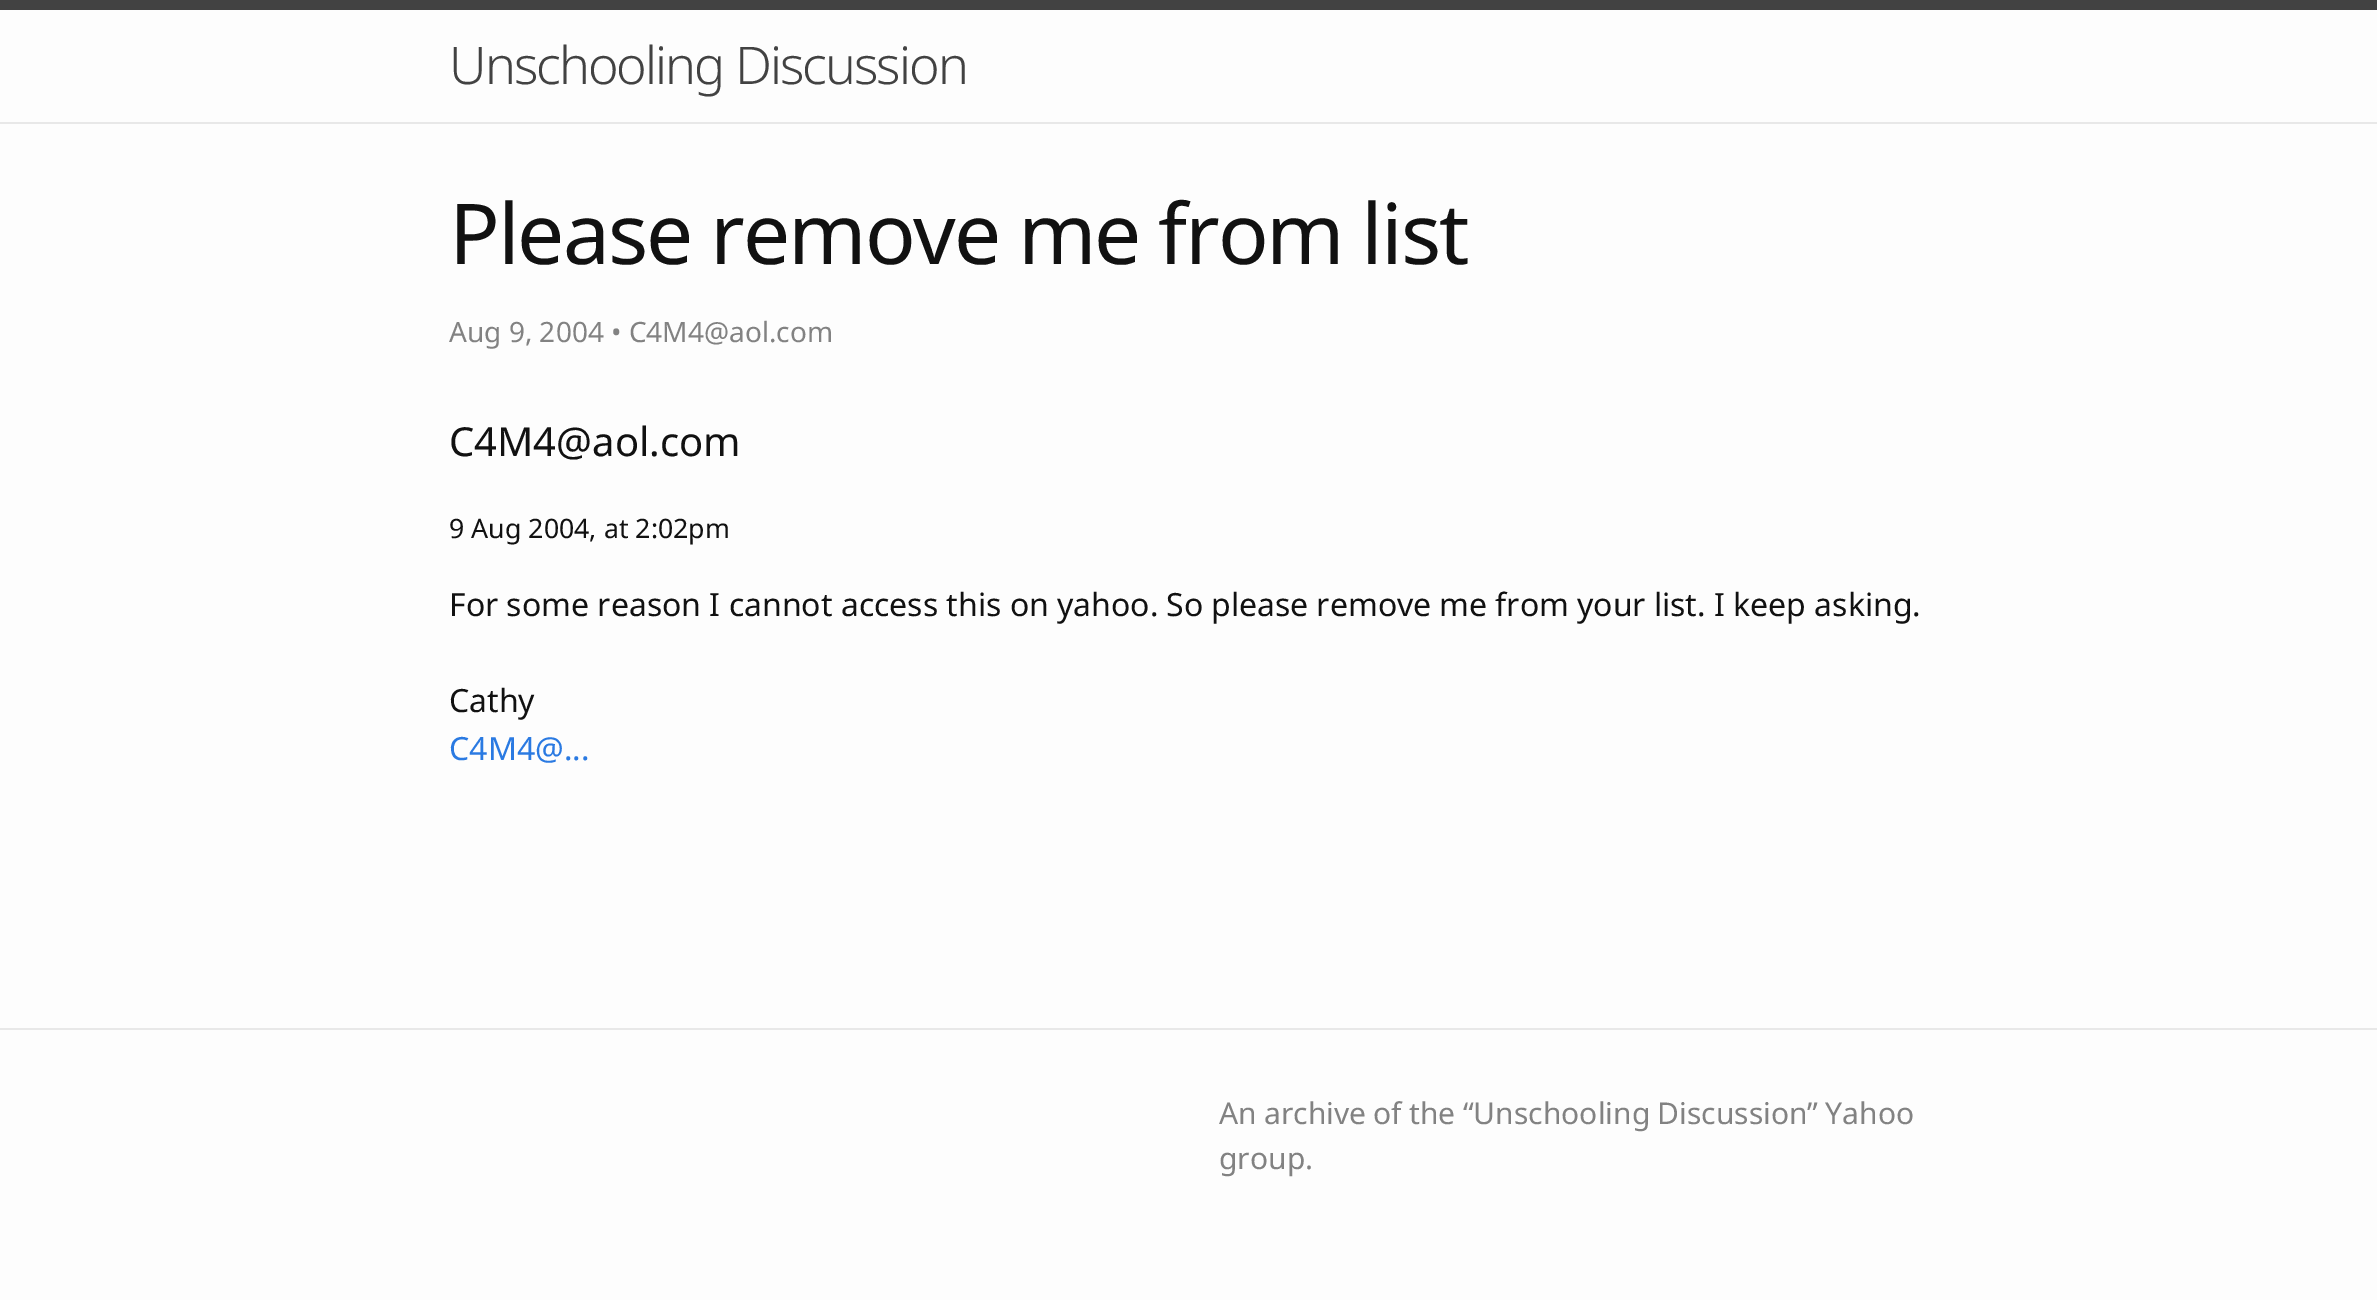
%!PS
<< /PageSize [2377 1300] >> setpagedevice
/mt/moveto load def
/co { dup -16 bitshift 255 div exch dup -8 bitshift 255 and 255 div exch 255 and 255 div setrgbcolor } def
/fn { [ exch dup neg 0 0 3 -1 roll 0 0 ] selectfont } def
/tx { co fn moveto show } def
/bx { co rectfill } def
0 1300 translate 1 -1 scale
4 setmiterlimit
0 0 2377 1300 16#FDFDFD bx
0 0 2377 10 16#424242 bx
0 122 2377 2 16#E8E8E8 bx
0 1028 2377 2 16#E8E8E8 bx
/NotoSans-Light 52 fn
16#424242 co
449 84 mt -2 0 (Unschooling Discussion) ashow
/NotoSans-Regular 84 fn
16#111111 co
449 264 mt -1.5 0 32 -2 0 (Please remove me from list) awidthshow
(Aug 9, 2004 • C4M4@aol.com) 449 342 /NotoSans-Regular 28 16#828282 tx
(C4M4@aol.com) 449 456 /NotoSans-Regular 40 16#111111 tx
(9 Aug 2004, at 2:02pm) 449 538 /NotoSans-Regular 26.75 16#111111 tx
(For some reason I cannot access this on yahoo.) 449 616 /NotoSans-Regular 32 16#111111 tx
1166 616 mt -.25 0 32 (So please remove me from your list.) widthshow
(I keep asking.) 1714 616 /NotoSans-Regular 32 16#111111 tx
(Cathy) 449 712 /NotoSans-Regular 32 16#111111 tx
(C4M4@...) 449 760 /NotoSans-Regular 32 16#2A7AE2 tx
/NotoSans-Regular 30 fn
16#828282 co
1219 1124 mt -.5 0 32 (An archive of the “Unschooling Discussion” Yahoo) widthshow
(group.) 1219 1169 /NotoSans-Regular 30 16#828282 tx
showpage
